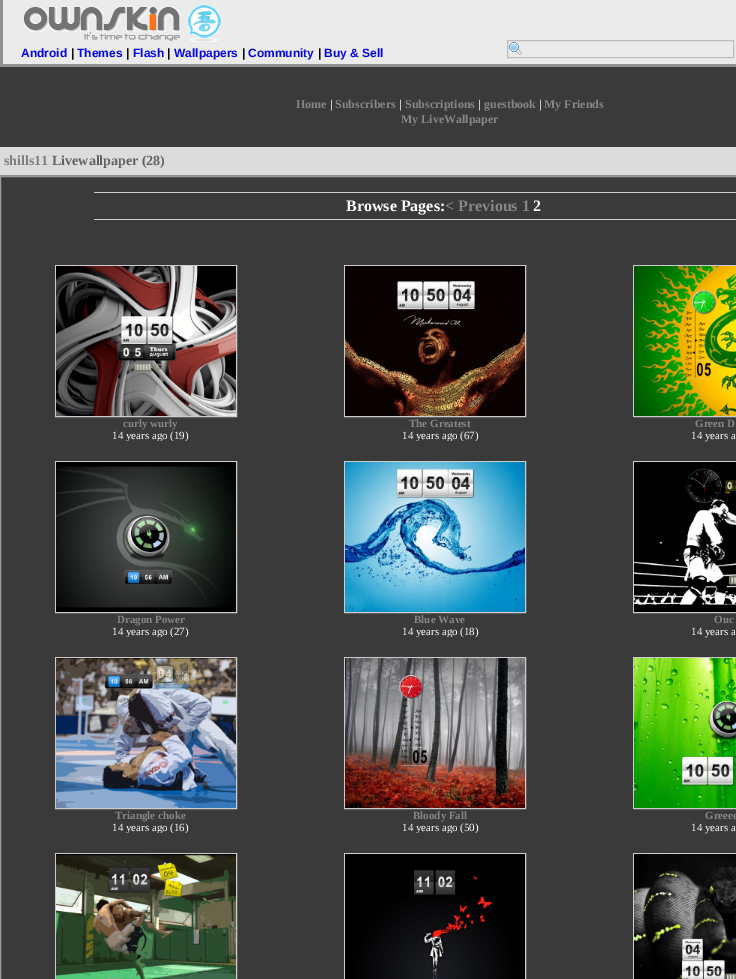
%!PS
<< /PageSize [736 979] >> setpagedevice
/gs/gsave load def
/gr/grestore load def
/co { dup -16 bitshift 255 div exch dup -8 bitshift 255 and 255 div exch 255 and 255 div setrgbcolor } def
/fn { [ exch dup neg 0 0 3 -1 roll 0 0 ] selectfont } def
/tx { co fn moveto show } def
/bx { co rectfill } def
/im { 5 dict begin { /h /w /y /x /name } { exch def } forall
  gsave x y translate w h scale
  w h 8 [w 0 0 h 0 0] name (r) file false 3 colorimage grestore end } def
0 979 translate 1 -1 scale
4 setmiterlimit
0 0 736 979 16#3A3A3A bx
3 0 733 64 16#EBEBEB bx
0 64 736 3 16#909090 bx
0 0 3 67 16#909090 bx
(media/1.raw) 23 5 198 37 im
(media/2.raw) 509 42 13 13 im
16#BDBDBD co
507.5 40.5 226 17 rectstroke
0 147 736 28 16#DCDCDC bx
0 175 736 1 16#909090 bx
16#999999 co
.5 176.5 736 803 rectstroke
94 192 642 1 16#CCCCCC bx
94 219 642 1 16#CCCCCC bx
55.5 265.5 181 151 rectstroke
(media/3.raw) 56 266 180 150 im
344.5 265.5 181 151 rectstroke
(media/4.raw) 345 266 180 150 im
633.5 265.5 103 151 rectstroke
(media/5.raw) 634 266 102 150 im
55.5 461.5 181 151 rectstroke
(media/6.raw) 56 462 180 150 im
344.5 461.5 181 151 rectstroke
(media/7.raw) 345 462 180 150 im
633.5 461.5 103 151 rectstroke
(media/8.raw) 634 462 102 150 im
55.5 657.5 181 151 rectstroke
(media/9.raw) 56 658 180 150 im
344.5 657.5 181 151 rectstroke
(media/10.raw) 345 658 180 150 im
633.5 657.5 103 151 rectstroke
(media/11.raw) 634 658 102 150 im
55.5 853.5 181 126 rectstroke
(media/12.raw) 56 854 180 125 im
344.5 853.5 181 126 rectstroke
(media/13.raw) 345 854 180 125 im
633.5 853.5 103 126 rectstroke
(media/14.raw) 634 854 102 125 im
(Android) 21 57 /LiberationSans-Bold 12 16#0606EB tx
(|) 71 57 /LiberationSans-Bold 12 16#060606 tx
(Themes) 77 57 /LiberationSans-Bold 12 16#0606EB tx
(|) 126 57 /LiberationSans-Bold 12 16#060606 tx
(Flash) 133 57 /LiberationSans-Bold 12 16#0606EB tx
(|) 167 57 /LiberationSans-Bold 12 16#060606 tx
(Wallpapers) 174 57 /LiberationSans-Bold 12 16#0606EB tx
(|) 242 57 /LiberationSans-Bold 12 16#060606 tx
(Community) 248 57 /LiberationSans-Bold 12 16#0606EB tx
(|) 318 57 /LiberationSans-Bold 12 16#060606 tx
(Buy & Sell) 324 57 /LiberationSans-Bold 12 16#0606EB tx
(Home) 296 108 /LiberationSerif-Bold 12 16#898588 tx
(|) 330 108 /LiberationSerif-Bold 12 16#FFFFFF tx
(Subscribers) 335 108 /LiberationSerif-Bold 12 16#898588 tx
(|) 399 108 /LiberationSerif-Bold 12 16#FFFFFF tx
(Subscriptions) 405 108 /LiberationSerif-Bold 12 16#898588 tx
(|) 478 108 /LiberationSerif-Bold 12 16#FFFFFF tx
(guestbook) 484 108 /LiberationSerif-Bold 12 16#898588 tx
(|) 539 108 /LiberationSerif-Bold 12 16#FFFFFF tx
(My Friends) 544 108 /LiberationSerif-Bold 12 16#898588 tx
(My LiveWallpaper) 401 123 /LiberationSerif-Bold 12 16#898588 tx
(shills11) 4 165 /LiberationSerif-Bold 14 16#817E80 tx
(Livewallpaper \(28\)) 52 165 /LiberationSerif-Bold 14 16#626262 tx
(Browse Pages:) 346 211 /LiberationSerif-Bold 16 16#FFFFFF tx
(< Previous 1) 445 211 /LiberationSerif-Bold 16 16#898588 tx
(2) 533 211 /LiberationSerif-Bold 16 16#FFFFFF tx
(curly wurly) 123 427 /LiberationSerif-Bold 11 16#898588 tx
gs
6 265 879 176 rectclip
(14 years ago \(19\)) 112 439 /LiberationSerif-Regular 11 16#FFFFFF tx
gr
(The Greatest) 409 427 /LiberationSerif-Bold 11 16#898588 tx
gs
6 265 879 176 rectclip
(14 years ago \(67\)) 402 439 /LiberationSerif-Regular 11 16#FFFFFF tx
gr
(Green D) 695 427 /LiberationSerif-Bold 11 16#898588 tx
(14 years a) 691 439 /LiberationSerif-Regular 11 16#FFFFFF tx
(Dragon Power) 117 623 /LiberationSerif-Bold 11 16#898588 tx
gs
6 461 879 176 rectclip
(14 years ago \(27\)) 112 635 /LiberationSerif-Regular 11 16#FFFFFF tx
gr
(Blue Wave) 414 623 /LiberationSerif-Bold 11 16#898588 tx
gs
6 461 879 176 rectclip
(14 years ago \(18\)) 402 635 /LiberationSerif-Regular 11 16#FFFFFF tx
gr
(Ouc) 714 623 /LiberationSerif-Bold 11 16#898588 tx
(14 years a) 691 635 /LiberationSerif-Regular 11 16#FFFFFF tx
(Triangle choke) 115 819 /LiberationSerif-Bold 11 16#898588 tx
gs
6 657 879 176 rectclip
(14 years ago \(16\)) 112 831 /LiberationSerif-Regular 11 16#FFFFFF tx
gr
(Bloody Fall) 413 819 /LiberationSerif-Bold 11 16#898588 tx
gs
6 657 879 176 rectclip
(14 years ago \(50\)) 402 831 /LiberationSerif-Regular 11 16#FFFFFF tx
gr
(Greeee) 705 819 /LiberationSerif-Bold 11 16#898588 tx
(14 years a) 691 831 /LiberationSerif-Regular 11 16#FFFFFF tx
showpage
